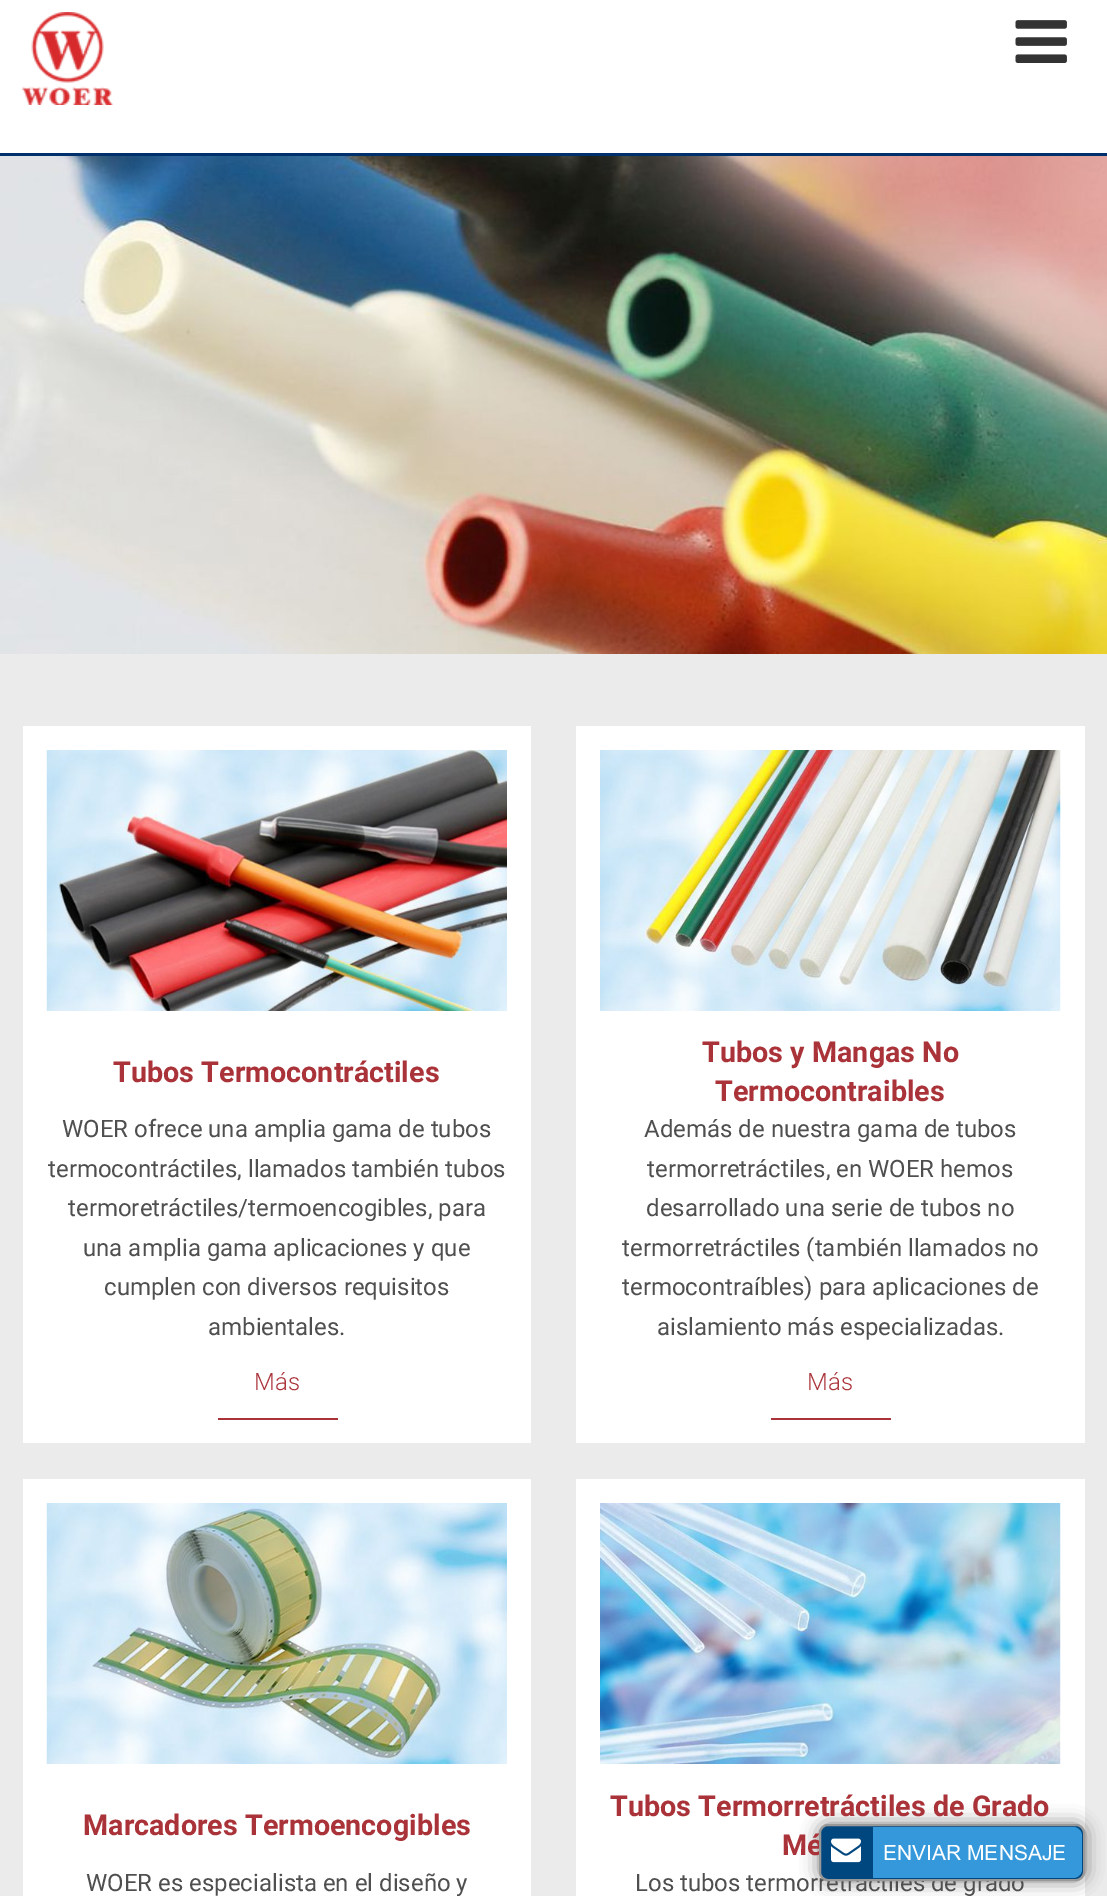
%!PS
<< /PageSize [1107 1896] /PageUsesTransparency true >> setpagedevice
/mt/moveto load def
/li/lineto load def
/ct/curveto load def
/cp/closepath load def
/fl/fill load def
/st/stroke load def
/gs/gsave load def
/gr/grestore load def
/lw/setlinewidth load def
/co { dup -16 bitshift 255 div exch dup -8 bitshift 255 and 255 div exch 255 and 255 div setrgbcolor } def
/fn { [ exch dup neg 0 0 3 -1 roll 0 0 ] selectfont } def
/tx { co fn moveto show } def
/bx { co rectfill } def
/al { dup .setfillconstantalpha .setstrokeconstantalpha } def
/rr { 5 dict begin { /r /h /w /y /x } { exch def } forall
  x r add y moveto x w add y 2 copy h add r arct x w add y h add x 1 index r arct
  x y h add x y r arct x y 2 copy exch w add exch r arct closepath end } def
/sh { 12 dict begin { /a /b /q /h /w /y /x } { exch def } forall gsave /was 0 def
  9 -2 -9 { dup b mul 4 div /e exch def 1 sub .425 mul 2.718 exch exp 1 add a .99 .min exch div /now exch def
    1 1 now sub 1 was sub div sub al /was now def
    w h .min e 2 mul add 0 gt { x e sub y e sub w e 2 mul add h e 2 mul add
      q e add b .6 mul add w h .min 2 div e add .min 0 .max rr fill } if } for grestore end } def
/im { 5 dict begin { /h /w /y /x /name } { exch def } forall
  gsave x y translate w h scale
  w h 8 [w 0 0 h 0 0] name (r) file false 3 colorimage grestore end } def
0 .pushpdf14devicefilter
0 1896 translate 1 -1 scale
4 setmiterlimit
0 0 1107 1896 16#FFFFFF bx
0 153 1107 3 16#00306B bx
(media/1.raw) 22 12 91 93 im
(media/2.raw) 1015 20 52 43 im
(media/3.raw) 0 156 1107 498 im
0 654 1107 1242 16#EBEBEB bx
23 726 508 717 16#FFFFFF bx
(media/4.raw) 46 750 461 261 im
218 1418 120 2 16#AA333A bx
576 726 509 717 16#FFFFFF bx
(media/5.raw) 600 750 461 261 im
771 1418 120 2 16#AA333A bx
23 1479 508 417 16#FFFFFF bx
(media/6.raw) 46 1503 461 261 im
576 1479 509 417 16#FFFFFF bx
(media/7.raw) 600 1503 461 261 im
16#000000 co
819 1824 266 57 9 9 .5 sh
(Tubos Termocontráctiles) 113 1082 /Roboto-Bold 28.75 16#AA333A tx
(WOER ofrece una amplia gama de tubos) 62 1137 /Roboto-Regular 24 16#4F4F50 tx
(termocontráctiles, llamados también tubos) 48 1177 /Roboto-Regular 24 16#4F4F50 tx
(termoretráctiles/termoencogibles, para) 68 1216 /Roboto-Regular 24 16#4F4F50 tx
(una amplia gama aplicaciones y que) 83 1256 /Roboto-Regular 24 16#4F4F50 tx
(cumplen con diversos requisitos) 104 1295 /Roboto-Regular 24 16#4F4F50 tx
(ambientales.) 208 1335 /Roboto-Regular 24 16#4F4F50 tx
(Más) 254 1390 /Roboto-Light 24 16#AA333A tx
(Tubos y Mangas No) 702 1062 /Roboto-Bold 28.75 16#AA333A tx
(Termocontraibles) 715 1101 /Roboto-Bold 28.75 16#AA333A tx
(Además de nuestra gama de tubos) 644 1137 /Roboto-Regular 24 16#4F4F50 tx
(termorretráctiles, en WOER hemos) 647 1177 /Roboto-Regular 24 16#4F4F50 tx
(desarrollado una serie de tubos no) 646 1216 /Roboto-Regular 24 16#4F4F50 tx
(termorretráctiles \(también llamados no) 622 1256 /Roboto-Regular 24 16#4F4F50 tx
(termocontraíbles\) para aplicaciones de) 622 1295 /Roboto-Regular 24 16#4F4F50 tx
(aislamiento más especializadas.) 657 1335 /Roboto-Regular 24 16#4F4F50 tx
(Más) 807 1390 /Roboto-Light 24 16#AA333A tx
(Marcadores Termoencogibles) 83 1835 /Roboto-Bold 28.75 16#AA333A tx
(WOER es especialista en el diseño y) 86 1891 /Roboto-Regular 24 16#4F4F50 tx
(Tubos Termorretráctiles de Grado) 610 1816 /Roboto-Bold 28.75 16#AA333A tx
(Mé) 782 1855 /Roboto-Bold 28.75 16#AA333A tx
(Los tubos termorretráctiles de grado) 635 1891 /Roboto-Regular 24 16#4F4F50 tx
16#00467F co
820 1825 264 55 8 rr gs fl gr
16#999999 co
2 lw
st
(media/8.raw) 831 1838 30 25 im
16#3498DB co
873 1827 mt 1073 1827 li 1078 1827 1082 1831 1082 1836 ct 1082 1869 li 1082 1874 1078 1878 1073 1878 ct 873 1878 li cp fl
(ENVIAR MENSAJE) 883 1860 /Arial-Regular 21 16#FFFFFF tx
.poppdf14devicefilter showpage
